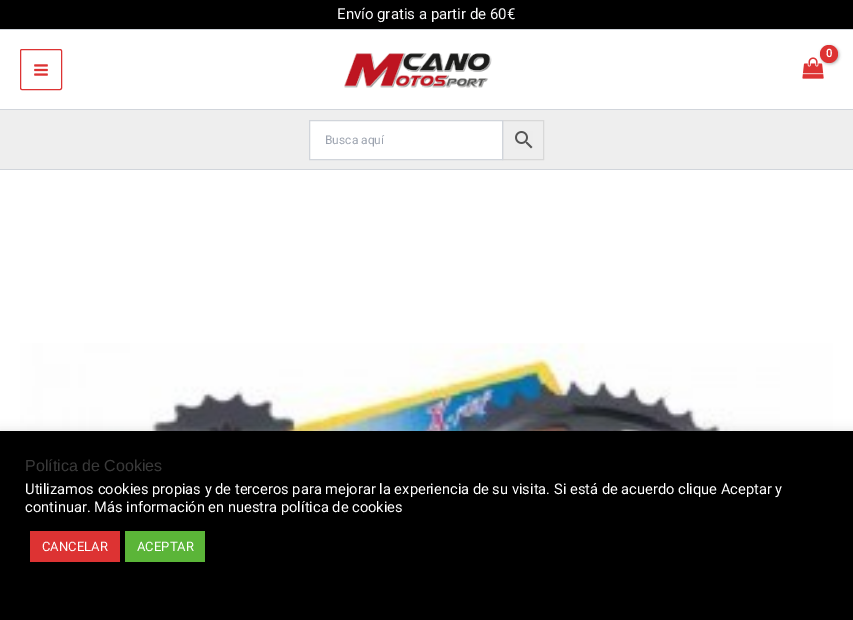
%!PS
<< /PageSize [853 620] /PageUsesTransparency true >> setpagedevice
/mt/moveto load def
/li/lineto load def
/cp/closepath load def
/fl/fill load def
/st/stroke load def
/gs/gsave load def
/gr/grestore load def
/co { dup -16 bitshift 255 div exch dup -8 bitshift 255 and 255 div exch 255 and 255 div setrgbcolor } def
/fn { [ exch dup neg 0 0 3 -1 roll 0 0 ] selectfont } def
/tx { co fn moveto show } def
/bx { co rectfill } def
/al { dup .setfillconstantalpha .setstrokeconstantalpha } def
/ci { newpath 0 360 arc closepath } def
/rr { 5 dict begin { /r /h /w /y /x } { exch def } forall
  x r add y moveto x w add y 2 copy h add r arct x w add y h add x 1 index r arct
  x y h add x y r arct x y 2 copy exch w add exch r arct closepath end } def
/sh { 12 dict begin { /a /b /q /h /w /y /x } { exch def } forall gsave /was 0 def
  9 -2 -9 { dup b mul 4 div /e exch def 1 sub .425 mul 2.718 exch exp 1 add a .99 .min exch div /now exch def
    1 1 now sub 1 was sub div sub al /was now def
    w h .min e 2 mul add 0 gt { x e sub y e sub w e 2 mul add h e 2 mul add
      q e add b .6 mul add w h .min 2 div e add .min 0 .max rr fill } if } for grestore end } def
/im { 5 dict begin { /h /w /y /x /name } { exch def } forall
  gsave x y translate w h scale
  w h 8 [w 0 0 h 0 0] name (r) file false 3 colorimage grestore end } def
0 .pushpdf14devicefilter
0 620 translate 1 -1 scale
4 setmiterlimit
0 0 853 620 16#FFFFFF bx
0 0 853 29 16#000000 bx
0 29 853 1 16#D1D5DB bx
0 109 853 1 16#D1D5DB bx
16#DD3333 co
20.5 49.5 41 40 1.5 rr st
(media/1.raw) 34 64 14 12 im
(media/2.raw) 344 53 148 35 im
(media/3.raw) 802 57 22 22 im
16#000000 co
821 46 18 18 9 1.5 .3 sh
16#DD3333 co
829 54 9 ci fl
0 110 853 59 16#EEEEEE bx
0 169 853 1 16#D1D5DB bx
16#D8D8D8 co
502.5 120.5 41 39 rectstroke
16#FFFFFF co
309.5 120.5 mt 502.5 120.5 li 502.5 159.5 li 309.5 159.5 li cp gs fl gr
16#D1D5DB co
st
(media/4.raw) 515 131 18 18 im
(media/5.raw) 20 343 813 88 im
16#ACABAB co
0 430 853 189 0 5 .3 sh
0 431 853 189 16#000000 bx
30 531 90 31 16#DD3333 bx
125 531 80 31 16#5BB538 bx
(Envío gratis a partir de 60€) 337 19 /Roboto-Regular 15 16#F9FAFB tx
(0) 826 57 /Roboto-Bold 11 16#FFFFFF tx
(Busca aquí) 325 144 /Roboto-Regular 12 16#9CA3AF tx
(Política de Cookies) 25 471 /LiberationSans-Regular 16 16#3A3A3A tx
(Utilizamos cookies propias y de terceros para mejorar la experiencia de su visita. Si está de acuerdo clique Aceptar y) 25 494 /Roboto-Regular 14.67 16#FFFFFF tx
(continuar. Más información en nuestra política de cookies) 25 512 /Roboto-Regular 14.67 16#FFFFFF tx
(CANCELAR) 42 551 /Roboto-Regular 13 16#FFFFFF tx
(ACEPTAR) 137 551 /Roboto-Regular 13 16#FFFFFF tx
.poppdf14devicefilter showpage
